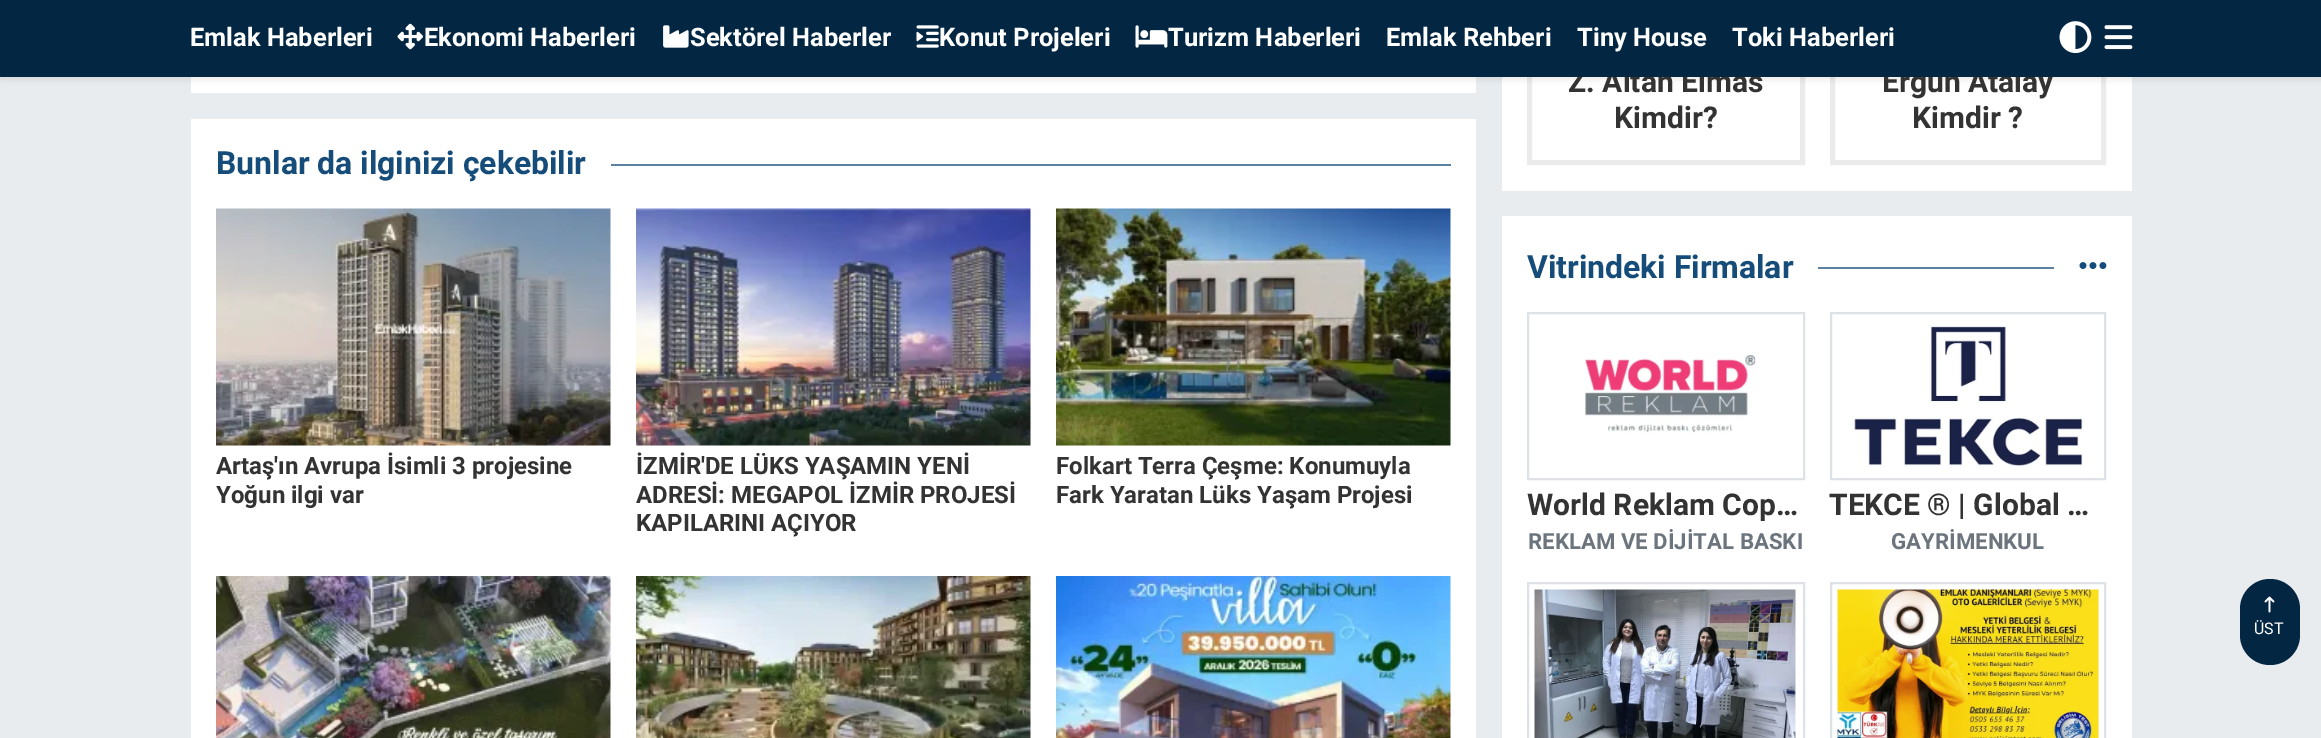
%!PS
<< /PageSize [2321 738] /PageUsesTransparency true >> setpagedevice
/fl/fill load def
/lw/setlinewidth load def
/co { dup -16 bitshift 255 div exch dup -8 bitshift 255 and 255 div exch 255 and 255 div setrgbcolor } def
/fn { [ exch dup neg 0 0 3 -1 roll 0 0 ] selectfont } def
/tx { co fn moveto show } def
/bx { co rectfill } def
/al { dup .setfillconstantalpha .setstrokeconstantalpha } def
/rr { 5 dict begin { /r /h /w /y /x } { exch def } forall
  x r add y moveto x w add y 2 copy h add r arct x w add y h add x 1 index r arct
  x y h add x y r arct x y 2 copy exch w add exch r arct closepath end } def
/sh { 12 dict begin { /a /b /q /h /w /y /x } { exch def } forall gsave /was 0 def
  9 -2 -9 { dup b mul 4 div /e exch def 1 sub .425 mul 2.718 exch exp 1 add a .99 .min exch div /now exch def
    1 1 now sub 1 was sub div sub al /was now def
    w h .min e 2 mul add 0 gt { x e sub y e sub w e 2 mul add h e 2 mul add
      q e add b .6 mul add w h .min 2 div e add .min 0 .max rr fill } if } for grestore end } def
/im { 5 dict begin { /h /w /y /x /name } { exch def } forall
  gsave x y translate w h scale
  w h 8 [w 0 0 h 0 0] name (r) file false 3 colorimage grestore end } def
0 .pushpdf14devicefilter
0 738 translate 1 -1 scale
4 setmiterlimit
0 0 2321 738 16#E9ECEF bx
191 77 1285 16 16#FFFFFF bx
1502 77 630 114 16#FFFFFF bx
16#EBEBEB co
5 lw
1529.5 -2.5 273 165 rectstroke
1832.5 -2.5 271 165 rectstroke
16#000000 co
0 3 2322 77 0 3 .07 sh
191 119 1285 619 16#FFFFFF bx
611 164 840 2 16#5B82A1 bx
(media/7.raw) 216 208 395 238 im
(media/8.raw) 636 208 395 238 im
(media/9.raw) 1056 208 395 238 im
(media/10.raw) 216 576 395 162 im
(media/11.raw) 636 576 395 162 im
(media/12.raw) 1056 576 395 162 im
1502 216 630 522 16#FFFFFF bx
1818 267 236 2 16#5B82A1 bx
(media/13.raw) 2079 262 28 7 im
16#DEE2E6 co
2 lw
1528 313 276 166 rectstroke
(media/14.raw) 1584 355 172 78 im
1831 313 274 166 rectstroke
(media/15.raw) 1854 326 229 142 im
1528 583 276 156 rectstroke
(media/16.raw) 1534 589 262 149 im
1831 583 274 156 rectstroke
(media/17.raw) 1837 589 262 149 im
16#032643 co
2240 579 60 86 30 rr fl
(media/18.raw) 2264 596 11 17 im
(Bunlar da ilginizi çekebilir) 216 174 /Roboto-Bold 31.9 16#154C79 tx
(Artaş'ın Avrupa İsimli 3 projesine) 216 474 /Roboto-Bold 24 16#333333 tx
(Yoğun ilgi var) 216 503 /Roboto-Bold 24 16#333333 tx
(İZMİR'DE LÜKS YAŞAMIN YENİ) 636 474 /Roboto-Bold 24 16#333333 tx
(ADRESİ: MEGAPOL İZMİR PROJESİ) 636 503 /Roboto-Bold 24 16#333333 tx
(KAPILARINI AÇIYOR) 636 531 /Roboto-Bold 24 16#333333 tx
(Folkart Terra Çeşme: Konumuyla) 1056 474 /Roboto-Bold 24 16#333333 tx
(Fark Yaratan Lüks Yaşam Projesi) 1056 503 /Roboto-Bold 24 16#333333 tx
(Z. Altan Elmas) 1568 92 /Roboto-Bold 30 16#333333 tx
(Kimdir?) 1614 128 /Roboto-Bold 30 16#333333 tx
(Ergün Atalay) 1882 92 /Roboto-Bold 30 16#333333 tx
0 0 2321 77 16#032643 bx
(media/5.raw) 2059 21 33 33 im
(media/6.raw) 2104 25 29 25 im
(Toki Haberleri) 1732 46 /Roboto-Bold 25.5 16#FFFFFF tx
(Tiny House) 1577 46 /Roboto-Bold 25.5 16#FFFFFF tx
(Emlak Rehberi) 1386 46 /Roboto-Bold 25.5 16#FFFFFF tx
(Turizm Haberleri) 1168 46 /Roboto-Bold 25.5 16#FFFFFF tx
(media/4.raw) 1135 25 33 23 im
(Konut Projeleri) 939 46 /Roboto-Bold 25.5 16#FFFFFF tx
(media/3.raw) 916 25 23 23 im
(Sektörel Haberler) 690 46 /Roboto-Bold 25.5 16#FFFFFF tx
(media/2.raw) 663 25 26 23 im
(Ekonomi Haberleri) 424 46 /Roboto-Bold 25.5 16#FFFFFF tx
(media/1.raw) 397 23 26 27 im
(Emlak Haberleri) 190 46 /Roboto-Bold 25.5 16#FFFFFF tx
(Kimdir ?) 1912 128 /Roboto-Bold 30 16#333333 tx
(Vitrindeki Firmalar) 1527 278 /Roboto-Bold 31.9 16#154C79 tx
(World Reklam Cop…) 1527 515 /Roboto-Bold 30 16#333333 tx
(REKLAM VE DİJİTAL BASKI) 1528 549 /Roboto-Bold 22.25 16#6C757D tx
(TEKCE ® | Global …) 1829 515 /Roboto-Bold 30 16#333333 tx
(GAYRİMENKUL) 1891 549 /Roboto-Bold 22.25 16#6C757D tx
(ÜST) 2254 634 /Roboto-Regular 16 16#FFFFFF tx
.poppdf14devicefilter showpage
